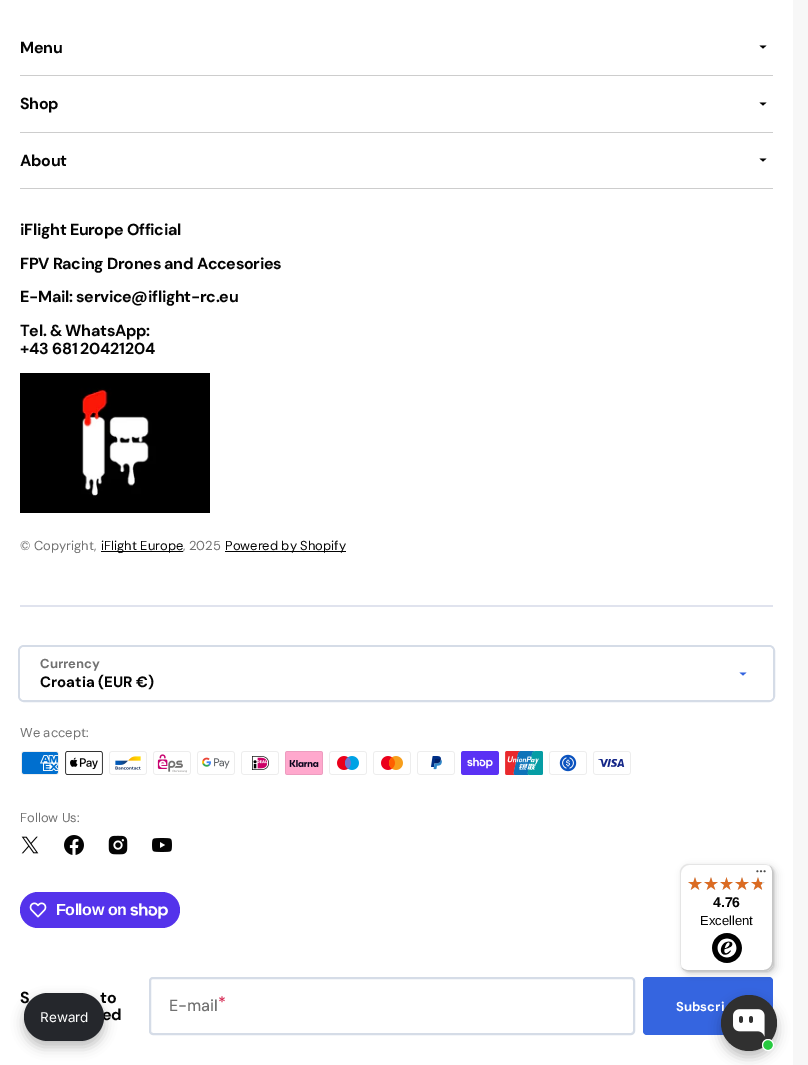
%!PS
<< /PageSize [808 1065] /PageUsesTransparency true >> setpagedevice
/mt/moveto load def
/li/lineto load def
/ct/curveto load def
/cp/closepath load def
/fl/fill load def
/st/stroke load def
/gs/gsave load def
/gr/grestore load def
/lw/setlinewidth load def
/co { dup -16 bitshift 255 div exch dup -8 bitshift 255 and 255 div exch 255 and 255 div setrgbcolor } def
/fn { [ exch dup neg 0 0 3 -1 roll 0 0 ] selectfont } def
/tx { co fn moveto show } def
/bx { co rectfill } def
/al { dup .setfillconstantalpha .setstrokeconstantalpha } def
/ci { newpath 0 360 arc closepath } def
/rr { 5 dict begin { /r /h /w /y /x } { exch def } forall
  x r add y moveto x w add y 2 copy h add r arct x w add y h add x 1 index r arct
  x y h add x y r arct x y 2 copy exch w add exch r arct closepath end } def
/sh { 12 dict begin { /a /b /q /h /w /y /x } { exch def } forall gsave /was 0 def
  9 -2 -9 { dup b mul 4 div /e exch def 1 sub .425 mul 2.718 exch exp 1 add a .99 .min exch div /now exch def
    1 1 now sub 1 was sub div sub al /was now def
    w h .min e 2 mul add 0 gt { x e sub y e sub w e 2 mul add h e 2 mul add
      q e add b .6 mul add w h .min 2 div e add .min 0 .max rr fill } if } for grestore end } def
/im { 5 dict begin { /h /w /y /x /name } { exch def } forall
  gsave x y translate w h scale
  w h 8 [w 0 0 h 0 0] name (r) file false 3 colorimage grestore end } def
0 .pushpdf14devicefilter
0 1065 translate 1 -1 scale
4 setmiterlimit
0 0 808 1065 16#F7F7F7 bx
0 0 793 1065 16#FFFFFF bx
20 75 753 1 16#CDCDCD bx
16#040404 co
763 48.5 mt 759.5 45.5 li 766.5 45.5 li cp fl
20 132 753 1 16#CDCDCD bx
16#040404 co
763 105.5 mt 759.5 102.5 li 766.5 102.5 li cp fl
20 188 753 1 16#CDCDCD bx
16#040404 co
763 161.5 mt 759.5 158.5 li 766.5 158.5 li cp fl
(media/1.raw) 20 373 190 140 im
101 551 82 1 16#040404 bx
225 551 121 1 16#040404 bx
20 605 753 2 16#E0E3EE bx
16#D5DCE7 co
2 lw
19 646 755 55 5 rr st
16#FFFFFF co
20 647 753 53 4 rr fl
16#3565E0 co
743 675.5 mt 739.5 672.5 li 746.5 672.5 li cp fl
(media/2.raw) 21 751 38 24 im
(media/3.raw) 65 751 38 24 im
(media/4.raw) 109 751 38 24 im
(media/5.raw) 153 751 38 24 im
(media/6.raw) 197 751 38 24 im
(media/7.raw) 241 751 38 24 im
(media/8.raw) 285 751 38 24 im
(media/9.raw) 329 751 38 24 im
(media/10.raw) 373 751 38 24 im
(media/11.raw) 417 751 38 24 im
(media/12.raw) 461 751 38 24 im
(media/13.raw) 505 751 38 24 im
(media/14.raw) 549 751 38 24 im
(media/15.raw) 593 751 38 24 im
(media/16.raw) 21 836 18 18 im
(media/17.raw) 64 835 20 20 im
(media/18.raw) 108 835 20 20 im
(media/19.raw) 152 838 20 14 im
16#5433EB co
20 892 160 36 18 rr fl
(media/20.raw) 29 902 18 16 im
(media/21.raw) 130 903 38 16 im
16#D5DCE7 co
150 978 484 56 3 rr st
16#3565E0 co
643 977 130 58 4 rr fl
16#000000 co
683 867 93 107 8 4 .15 sh
681 865 93 107 8 1 .15 sh
16#FFFFFF co
680 864 93 107 8 rr fl
16#E5E5E5 co
689 865 mt 766 865 li 768 865 770 866 772 868 ct 770 866 768 864 765 864 ct 688 864 li 684 864 680 868 680 872 ct 680 963 li 680 966 682 968 684 970 ct 682 968 681 966 681 964 ct 681 873 li 681 869 685 865 689 865 ct cp fl
16#CCCCCC co
681 967 mt 683 969 685 971 688 971 ct 765 971 li 769 971 773 967 773 963 ct 773 872 li 773 869 771 867 769 865 ct 771 867 772 869 772 871 ct 772 962 li 772 966 768 970 764 970 ct 687 970 li 685 970 683 969 681 967 ct cp fl
0.2 al
16#323232 co
682 968 mt 683 970 686 971 688 971 ct 765 971 li 769 971 773 967 773 963 ct 773 872 li 773 870 772 867 770 866 ct 771 867 772 869 772 871 ct 772 962 li 772 967 769 970 764 970 ct 687 970 li 685 970 683 969 682 968 ct cp fl
0.3 al
16#FFFFFF co
772 872 mt 772 867 769 864 764 864 ct 765 864 li 769 864 773 868 773 872 ct 773 963 li 773 967 769 971 765 971 ct 688 971 li 684 971 680 967 680 963 ct 680 962 li 680 967 683 970 688 970 ct 764 970 li 769 970 772 967 772 962 ct cp fl
1 al
(media/22.raw) 756 870 10 3 im
(media/23.raw) 688 877 14 13 im
(media/23.raw) 704 877 14 13 im
(media/24.raw) 720 877 13 13 im
(media/23.raw) 735 877 14 13 im
(media/23.raw) 751 877 14 13 im
(media/25.raw) 688 877 14 13 im
(media/25.raw) 704 877 14 13 im
(media/26.raw) 720 877 13 13 im
(media/25.raw) 735 877 14 13 im
(media/27.raw) 751 877 11 13 im
(media/28.raw) 712 933 30 30 im
16#000000 co
24 999 80 48 24 6 .25 sh
721 1001 56 56 28 6 .25 sh
/DMSans-Bold 16 fn
16#040404 co
20 53 mt -.3 0 (Menu) ashow
20 109 mt -.3 0 (Shop) ashow
20 166 mt -.3 0 (About) ashow
20 235 mt -.3 0 (iFlight Europe Official) ashow
20 269 mt -.3 0 (FPV Racing Drones and Accesories) ashow
20 302 mt -.3 0 (E-Mail: service@iflight-rc.eu) ashow
20 336 mt -.3 0 (Tel. & WhatsApp:) ashow
20 354 mt -.3 0 (+43 681 20421204) ashow
(© Copyright,) 20 550 /DMSans-Regular 13 16#717171 tx
(iFlight Europe) 101 550 /DMSans-Regular 13 16#040404 tx
(, 2025) 183 550 /DMSans-Regular 13 16#717171 tx
(Powered by Shopify) 225 550 /DMSans-Regular 13 16#040404 tx
(Currency) 40 668 /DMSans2-Bold 13 16#717171 tx
(Croatia \(EUR €\)) 40 687 /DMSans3-Bold 15 16#040404 tx
(We accept:) 20 737 /DMSans-Regular 13 16#717171 tx
(Follow Us:) 20 822 /DMSans-Regular 13 16#717171 tx
/LiberationSans-Bold 16 fn
16#FFFFFF co
56 915 mt -.5 0 (Follow on) ashow
/DMSans-Bold 16 fn
16#040404 co
20 1003 mt -.3 0 (S) ashow
100 1003 mt -.3 0 (to) ashow
102 1020 mt -.3 0 (ed) ashow
(E-mail) 169 1011 /DMSans-Medium 16 16#717171 tx
(*) 218 1008 /DMSans-Medium 16 16#D41F4B tx
(Subscri) 676 1011 /DMSans2-Bold 13 16#FFFFFF tx
(4.76) 713 907 /LiberationSans-Bold 14 16#040404 tx
(Excellent) 700 925 /LiberationSans-Regular 13 16#040404 tx
16#25272C co
24 993 80 48 24 rr fl
(Reward) 40 1022 /Inter-Regular 13.5 16#FFFFFF tx
16#303030 co
749 1023 28 ci fl
(media/29.raw) 733 1009 32 28 im
16#27CA40 co
768 1045 5.5 ci gs fl gr
16#FFFFFF co
1 lw
st
.poppdf14devicefilter showpage
